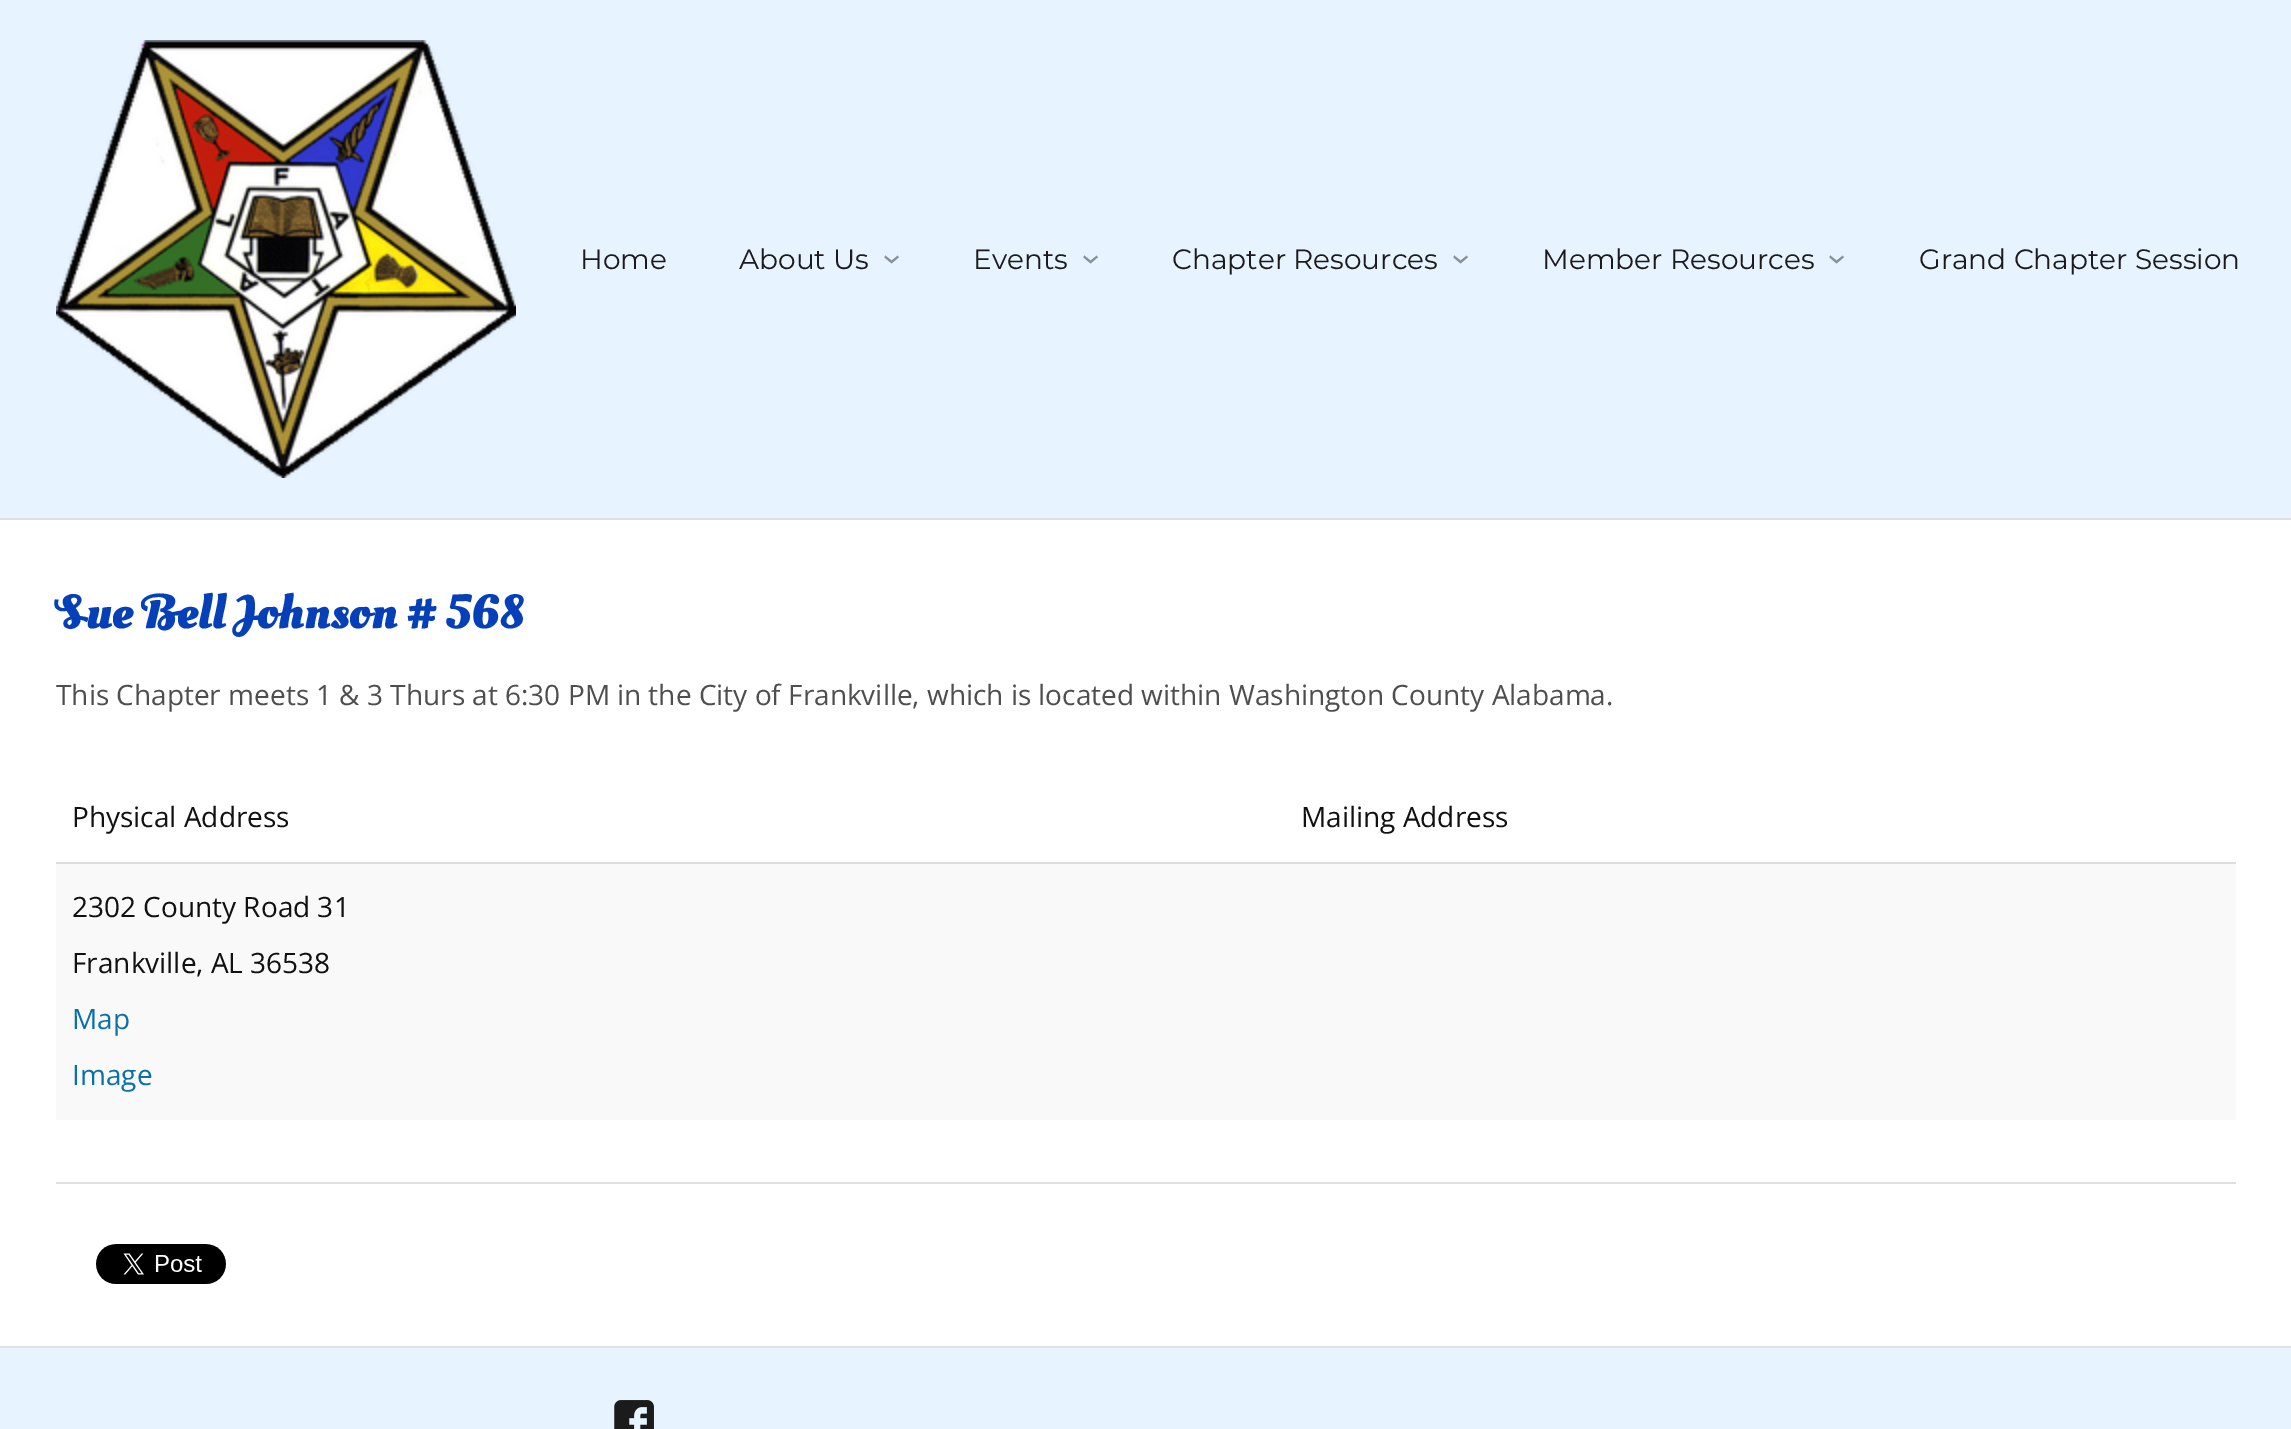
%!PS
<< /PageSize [2291 1429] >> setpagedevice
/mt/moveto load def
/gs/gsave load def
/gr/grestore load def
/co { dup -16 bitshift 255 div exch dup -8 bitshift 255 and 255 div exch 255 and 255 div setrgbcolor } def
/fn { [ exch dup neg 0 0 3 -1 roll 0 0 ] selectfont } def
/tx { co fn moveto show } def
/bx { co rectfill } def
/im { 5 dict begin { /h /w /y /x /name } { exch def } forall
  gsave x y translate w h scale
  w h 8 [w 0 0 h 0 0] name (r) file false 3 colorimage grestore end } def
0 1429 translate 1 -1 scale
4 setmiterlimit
0 0 2291 1429 16#FFFFFF bx
0 0 2291 518 16#E7F4FF bx
0 518 2291 2 16#E0E0E0 bx
(media/1.raw) 56 40 460 438 im
0 1346 2291 2 16#E0E0E0 bx
56 862 2180 2 16#DDDDDD bx
56 864 2180 256 16#F9F9F9 bx
56 1182 2180 2 16#DFDFDF bx
(media/2.raw) 96 1244 130 40 im
0 1348 2291 81 16#E7F4FF bx
(media/3.raw) 614 1400 40 29 im
(Home) 580 269 /Montserrat-Regular 28 16#1B1B1B tx
(About Us) 739 269 /Montserrat-Regular 28 16#1B1B1B tx
/OpenSans-Regular 36 fn
16#899096 co
gs 882 254 translate 90 rotate 0 0 mt (›) show gr
(Events) 973 269 /Montserrat-Regular 28 16#1B1B1B tx
/OpenSans-Regular 36 fn
16#899096 co
gs 1081 254 translate 90 rotate 0 0 mt (›) show gr
(Chapter Resources) 1172 269 /Montserrat-Regular 28 16#1B1B1B tx
/OpenSans-Regular 36 fn
16#899096 co
gs 1451 254 translate 90 rotate 0 0 mt (›) show gr
(Member Resources) 1542 269 /Montserrat-Regular 28 16#1B1B1B tx
/OpenSans-Regular 36 fn
16#899096 co
gs 1827 254 translate 90 rotate 0 0 mt (›) show gr
(Grand Chapter Session) 1919 269 /Montserrat-Regular 28 16#1B1B1B tx
(Sue Bell Johnson # 568) 56 628 /OleoScriptSwashCaps-Bold 48 16#0640B8 tx
(This Chapter meets 1 & 3 Thurs at 6:30 PM in the City of Frankville, which is located within Washington County Alabama.) 56 705 /OpenSans-Regular 28 16#4E4E4E tx
(Physical Address) 72 827 /OpenSans-Regular 28 16#111111 tx
(Mailing Address) 1301 827 /OpenSans-Regular 28 16#111111 tx
(2302 County Road 31) 72 917 /OpenSans-Regular 28 16#111111 tx
(Frankville, AL 36538) 72 973 /OpenSans-Regular 28 16#111111 tx
(Map) 72 1029 /OpenSans-Regular 28 16#0A70A6 tx
(Image) 72 1085 /OpenSans-Regular 28 16#0A70A6 tx
showpage
